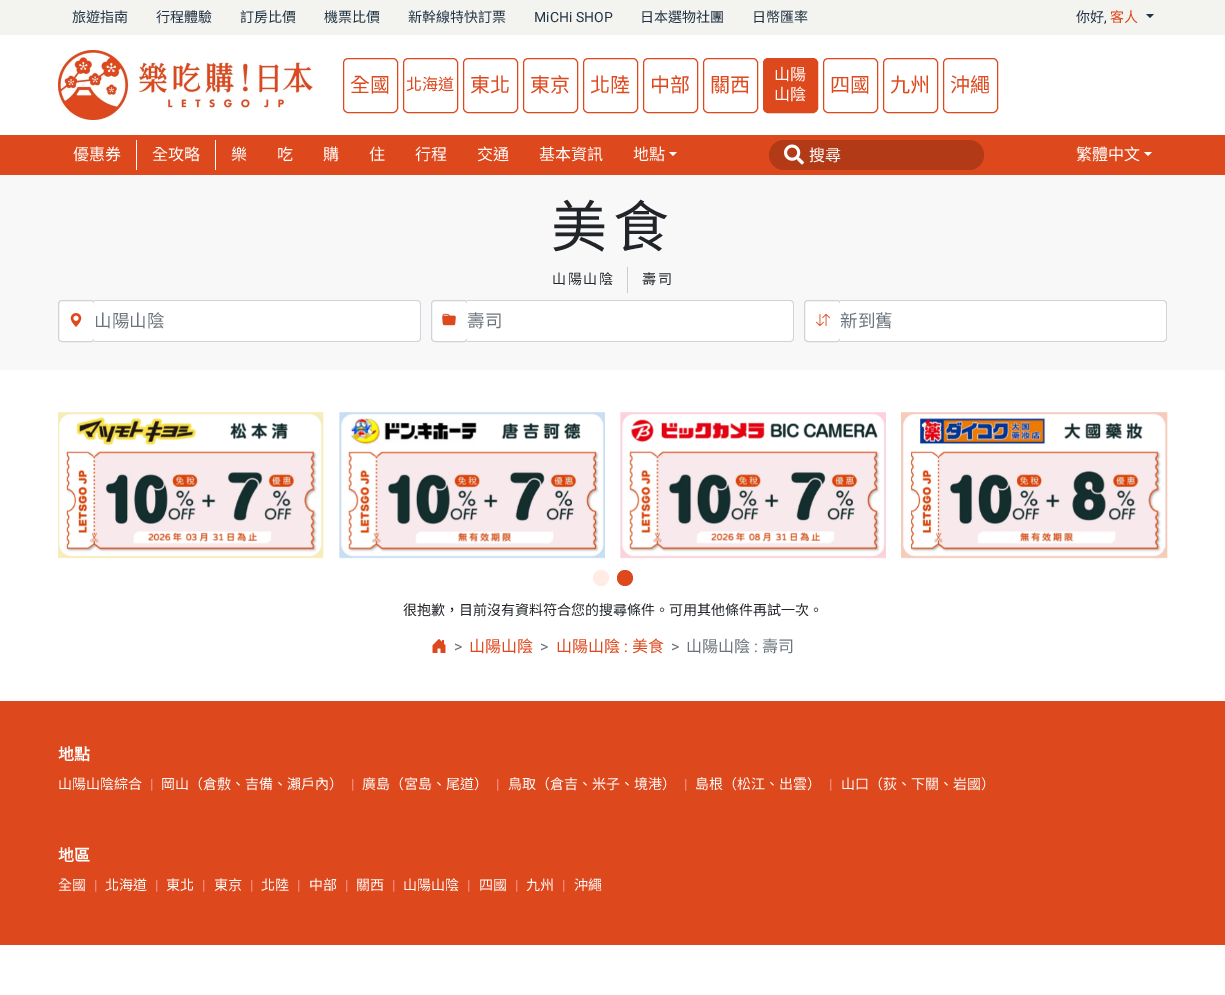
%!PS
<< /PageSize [1225 995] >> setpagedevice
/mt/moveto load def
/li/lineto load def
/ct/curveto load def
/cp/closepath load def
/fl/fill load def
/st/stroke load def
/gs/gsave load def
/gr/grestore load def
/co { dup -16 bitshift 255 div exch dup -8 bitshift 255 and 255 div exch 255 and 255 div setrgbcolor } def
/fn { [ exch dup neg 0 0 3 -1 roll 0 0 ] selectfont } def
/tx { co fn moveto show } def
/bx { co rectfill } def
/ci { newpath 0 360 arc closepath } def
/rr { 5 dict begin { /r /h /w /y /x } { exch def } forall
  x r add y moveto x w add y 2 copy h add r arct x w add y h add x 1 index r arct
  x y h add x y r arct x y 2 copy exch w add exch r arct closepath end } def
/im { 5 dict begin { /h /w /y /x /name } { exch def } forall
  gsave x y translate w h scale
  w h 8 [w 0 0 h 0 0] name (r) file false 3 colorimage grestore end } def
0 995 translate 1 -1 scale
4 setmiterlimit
0 0 1225 995 16#FFFFFF bx
0 0 1225 35 16#F3F3F0 bx
16#223344 co
1146 14 mt 1154 14 li 1150 18 li cp fl
(media/1.raw) 58 50 255 70 im
16#DE481D co
343.5 58.5 54 54 4.5 rr st
403.5 58.5 54 54 4.5 rr st
463.5 58.5 54 54 4.5 rr st
523.5 58.5 54 54 4.5 rr st
583.5 58.5 54 54 4.5 rr st
643.5 58.5 54 54 4.5 rr st
703.5 58.5 54 54 4.5 rr st
763.5 58.5 54 54 4.5 rr gs fl gr
st
823.5 58.5 54 54 4.5 rr st
883.5 58.5 54 54 4.5 rr st
943.5 58.5 54 54 4.5 rr st
0 135 1225 40 16#DE481D bx
136 140 1 30 16#FFFFFF bx
215 140 1 30 16#FFFFFF bx
669 152 mt 677 152 li 673 156 li cp fl
16#B23A17 co
769 140 215 30 15 rr fl
(media/2.raw) 784 144 20 21 im
16#FFFFFF co
1144 152 mt 1152 152 li 1148 156 li cp fl
0 175 1225 195 16#F8F8F8 bx
627 267 1 26 16#CCCCCC bx
16#FFFFFF co
58.5 300.5 36 41 3.5 rr gs fl gr
16#CED4DA co
st
(media/3.raw) 70 313 12 14 im
16#FFFFFF co
94 301 mt 417 301 li 418.5 301 420 302.5 420 304 ct 420 338 li 420 339.5 418.5 341 417 341 ct 94 341 li cp fl
16#CED4DA co
94 300 mt 417 300 li 419 300 421 302 421 304 ct 421 338 li 421 340 419 342 417 342 ct 94 342 li cp 94 301 mt 417 301 li 419 301 420 302 420 304 ct 420 338 li 420 340 419 341 417 341 ct 94 341 li cp eofill
16#FFFFFF co
431.5 300.5 36 41 3.5 rr gs fl gr
16#CED4DA co
st
(media/4.raw) 442 313 14 13 im
16#FFFFFF co
467 301 mt 790 301 li 791.5 301 793 302.5 793 304 ct 793 338 li 793 339.5 791.5 341 790 341 ct 467 341 li cp fl
16#CED4DA co
467 300 mt 790 300 li 792 300 794 302 794 304 ct 794 338 li 794 340 792 342 790 342 ct 467 342 li cp 467 301 mt 790 301 li 792 301 793 302 793 304 ct 793 338 li 793 340 792 341 790 341 ct 467 341 li cp eofill
16#FFFFFF co
804.5 300.5 36 41 3.5 rr gs fl gr
16#CED4DA co
st
(media/5.raw) 816 313 14 14 im
16#FFFFFF co
840 301 mt 1163 301 li 1164.5 301 1166 302.5 1166 304 ct 1166 338 li 1166 339.5 1164.5 341 1163 341 ct 840 341 li cp fl
16#CED4DA co
840 300 mt 1163 300 li 1165 300 1167 302 1167 304 ct 1167 338 li 1167 340 1165 342 1163 342 ct 840 342 li cp 840 301 mt 1163 301 li 1165 301 1166 302 1166 304 ct 1166 338 li 1166 340 1165 341 1163 341 ct 840 341 li cp eofill
(media/6.raw) 58 412 266 147 im
(media/7.raw) 339 412 266 147 im
(media/8.raw) 620 412 266 147 im
(media/9.raw) 901 412 267 147 im
16#FFECE4 co
601 578 8 ci fl
16#DE481D co
625 578 8 ci fl
(media/10.raw) 432 639 14 14 im
0 701 1225 244 16#DE481D bx
(旅遊指南) 72 22 /NotoSansCJKTC-Regular 14 16#223344 tx
(行程體驗) 156 22 /NotoSansCJKTC-Regular 14 16#223344 tx
(訂房比價) 240 22 /NotoSansCJKTC-Regular 14 16#223344 tx
(機票比價) 324 22 /NotoSansCJKTC-Regular 14 16#223344 tx
(新幹線特快訂票) 408 22 /NotoSansCJKTC-Regular 14 16#223344 tx
(MiCHi SHOP) 534 22 /Roboto-Regular 14 16#223344 tx
(日本選物社團) 640 22 /NotoSansCJKTC-Regular 14 16#223344 tx
(日幣匯率) 752 22 /NotoSansCJKTC-Regular 14 16#223344 tx
(你好) 1076 22 /NotoSansCJKTC-Regular 14 16#223344 tx
(客人) 1110 22 /NotoSansCJKTC-Regular 14 16#DE481D tx
(,) 1104 22 /Roboto-Regular 14 16#223344 tx
(全國) 350 92 /NotoSansCJKTC-Regular 20 16#DE481D tx
(北海道) 406 90 /NotoSansCJKTC-Regular 16 16#DE481D tx
(東北) 470 92 /NotoSansCJKTC-Regular 20 16#DE481D tx
(東京) 530 92 /NotoSansCJKTC-Regular 20 16#DE481D tx
(北陸) 590 92 /NotoSansCJKTC-Regular 20 16#DE481D tx
(中部) 650 92 /NotoSansCJKTC-Regular 20 16#DE481D tx
(關西) 710 92 /NotoSansCJKTC-Regular 20 16#DE481D tx
(山陽) 774 80 /NotoSansCJKTC-Regular 16 16#FFFFFF tx
(山陰) 774 100 /NotoSansCJKTC-Regular 16 16#FFFFFF tx
(四國) 830 92 /NotoSansCJKTC-Regular 20 16#DE481D tx
(九州) 890 92 /NotoSansCJKTC-Regular 20 16#DE481D tx
(沖繩) 950 92 /NotoSansCJKTC-Regular 20 16#DE481D tx
(優惠券) 73 160 /NotoSansCJKTC-Regular 16 16#FFFFFF tx
(全攻略) 152 160 /NotoSansCJKTC-Regular 16 16#FFFFFF tx
(樂) 231 160 /NotoSansCJKTC-Regular 16 16#FFFFFF tx
(吃) 277 160 /NotoSansCJKTC-Regular 16 16#FFFFFF tx
(購) 323 160 /NotoSansCJKTC-Regular 16 16#FFFFFF tx
(住) 369 160 /NotoSansCJKTC-Regular 16 16#FFFFFF tx
(行程) 415 160 /NotoSansCJKTC-Regular 16 16#FFFFFF tx
(交通) 477 160 /NotoSansCJKTC-Regular 16 16#FFFFFF tx
(基本資訊) 539 160 /NotoSansCJKTC-Regular 16 16#FFFFFF tx
(地點) 633 160 /NotoSansCJKTC-Regular 16 16#FFFFFF tx
(搜尋) 809 161 /NotoSansCJKTC-Regular 16 16#FFFFFF tx
(繁體中文) 1076 160 /NotoSansCJKTC-Regular 16 16#FFFFFF tx
/NotoSansCJKTC-Regular 56 fn
16#212529 co
551 247 mt 6 0 (美食) ashow
/NotoSansCJKTC-Regular 14 fn
552 284 mt 1.5 0 (山陽山陰) ashow
642 284 mt 1.5 0 (壽司) ashow
(山陽山陰) 94 327 /NotoSansCJKTC-Regular 17.5 16#6C757D tx
(壽司) 467 327 /NotoSansCJKTC-Regular 17.5 16#6C757D tx
(新到舊) 840 327 /NotoSansCJKTC-Regular 17.5 16#6C757D tx
(很抱歉，目前沒有資料符合您的搜尋條件。可用其他條件再試一次。) 403 615 /NotoSansCJKTC-Regular 14 16#212529 tx
(>) 454 652 /Roboto-Regular 16 16#6C757D tx
(山陽山陰) 469 652 /NotoSansCJKTC-Regular 16 16#DE481D tx
(>) 540 652 /Roboto-Regular 16 16#6C757D tx
(山陽山陰) 556 652 /NotoSansCJKTC-Regular 16 16#DE481D tx
(:) 624 652 /Roboto-Regular 16 16#DE481D tx
(美食) 632 652 /NotoSansCJKTC-Regular 16 16#DE481D tx
(>) 671 652 /Roboto-Regular 16 16#6C757D tx
(山陽山陰) 686 652 /NotoSansCJKTC-Regular 16 16#6C757D tx
(:) 754 652 /Roboto-Regular 16 16#6C757D tx
(壽司) 762 652 /NotoSansCJKTC-Regular 16 16#6C757D tx
(地點) 58 760 /NotoSansCJKTC-Bold 16 16#FFFFFF tx
(山陽山陰綜合) 58 789 /NotoSansCJKTC-Regular 14 16#FFFFFF tx
(|) 150 789 /Roboto-Regular 14 16#FF9999 tx
(岡山（倉敷、吉備、瀨戶內）) 161 789 /NotoSansCJKTC-Regular 14 16#FFFFFF tx
(|) 351 789 /Roboto-Regular 14 16#FF9999 tx
(廣島（宮島、尾道）) 362 789 /NotoSansCJKTC-Regular 14 16#FFFFFF tx
(|) 496 789 /Roboto-Regular 14 16#FF9999 tx
(鳥取（倉吉、米子、境港）) 508 789 /NotoSansCJKTC-Regular 14 16#FFFFFF tx
(|) 684 789 /Roboto-Regular 14 16#FF9999 tx
(島根（松江、出雲）) 695 789 /NotoSansCJKTC-Regular 14 16#FFFFFF tx
(|) 829 789 /Roboto-Regular 14 16#FF9999 tx
(山口（荻、下關、岩國）) 841 789 /NotoSansCJKTC-Regular 14 16#FFFFFF tx
(地區) 58 861 /NotoSansCJKTC-Bold 16 16#FFFFFF tx
(全國) 58 890 /NotoSansCJKTC-Regular 14 16#FFFFFF tx
(|) 94 890 /Roboto-Regular 14 16#FF9999 tx
(北海道) 105 890 /NotoSansCJKTC-Regular 14 16#FFFFFF tx
(|) 155 890 /Roboto-Regular 14 16#FF9999 tx
(東北) 166 890 /NotoSansCJKTC-Regular 14 16#FFFFFF tx
(|) 202 890 /Roboto-Regular 14 16#FF9999 tx
(東京) 214 890 /NotoSansCJKTC-Regular 14 16#FFFFFF tx
(|) 250 890 /Roboto-Regular 14 16#FF9999 tx
(北陸) 261 890 /NotoSansCJKTC-Regular 14 16#FFFFFF tx
(|) 297 890 /Roboto-Regular 14 16#FF9999 tx
(中部) 309 890 /NotoSansCJKTC-Regular 14 16#FFFFFF tx
(|) 345 890 /Roboto-Regular 14 16#FF9999 tx
(關西) 356 890 /NotoSansCJKTC-Regular 14 16#FFFFFF tx
(|) 392 890 /Roboto-Regular 14 16#FF9999 tx
(山陽山陰) 403 890 /NotoSansCJKTC-Regular 14 16#FFFFFF tx
(|) 467 890 /Roboto-Regular 14 16#FF9999 tx
(四國) 479 890 /NotoSansCJKTC-Regular 14 16#FFFFFF tx
(|) 515 890 /Roboto-Regular 14 16#FF9999 tx
(九州) 526 890 /NotoSansCJKTC-Regular 14 16#FFFFFF tx
(|) 562 890 /Roboto-Regular 14 16#FF9999 tx
(沖繩) 574 890 /NotoSansCJKTC-Regular 14 16#FFFFFF tx
showpage
